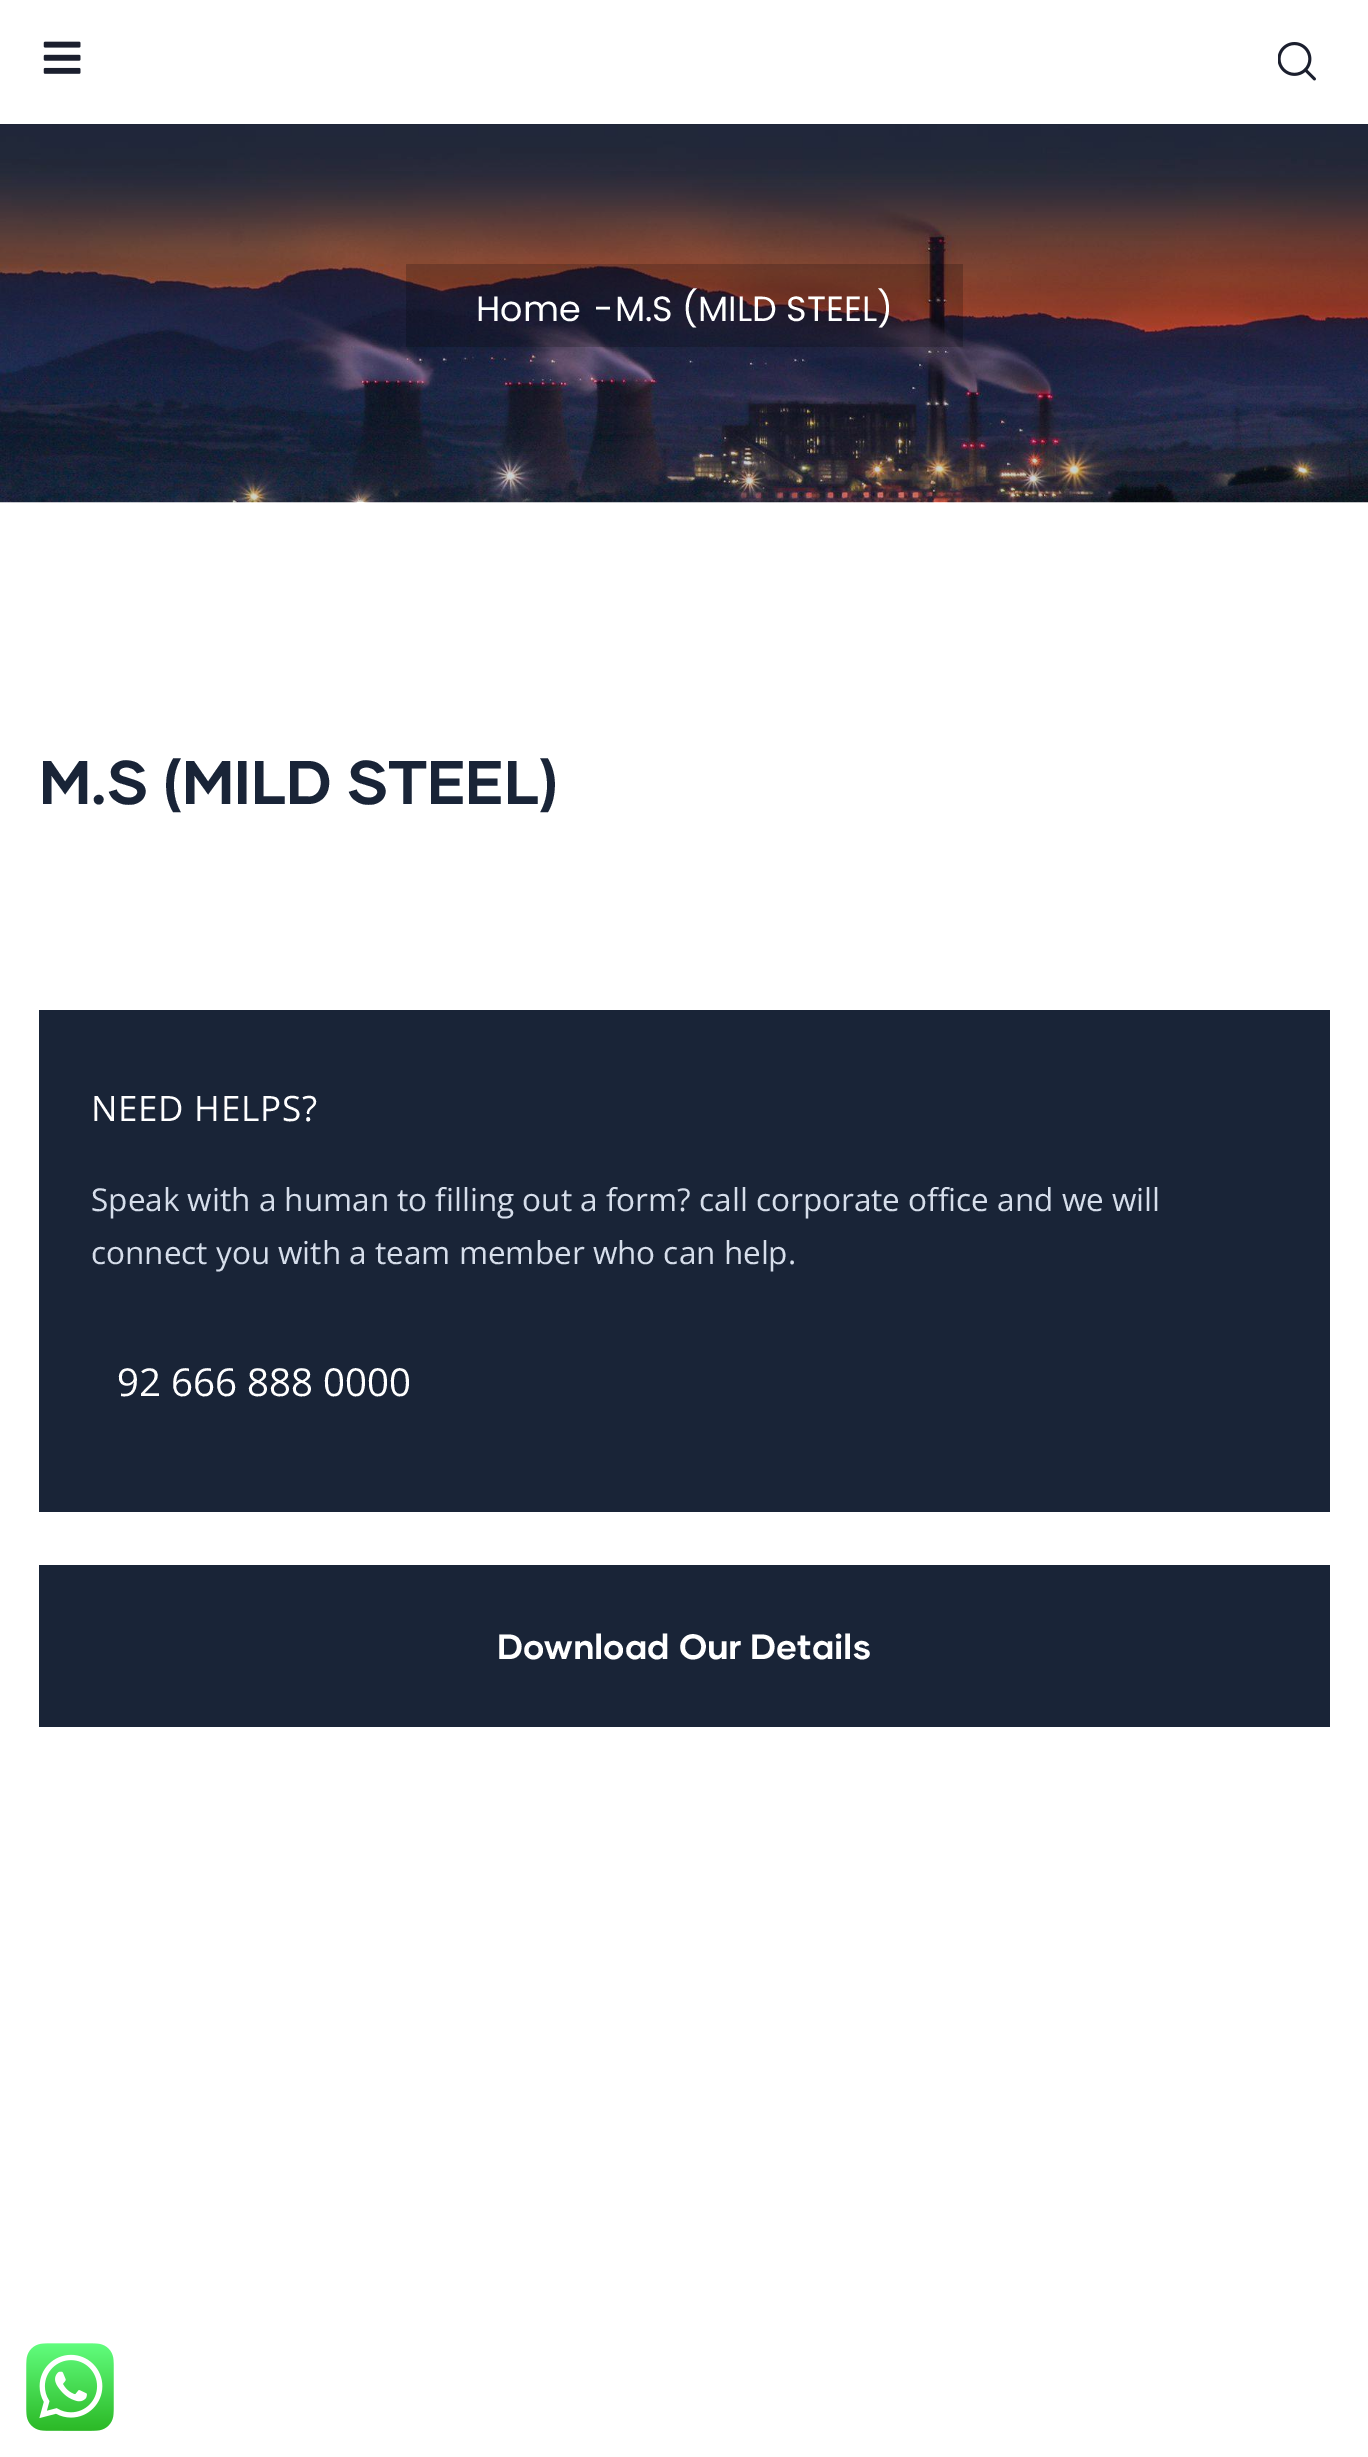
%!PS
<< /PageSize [1368 2457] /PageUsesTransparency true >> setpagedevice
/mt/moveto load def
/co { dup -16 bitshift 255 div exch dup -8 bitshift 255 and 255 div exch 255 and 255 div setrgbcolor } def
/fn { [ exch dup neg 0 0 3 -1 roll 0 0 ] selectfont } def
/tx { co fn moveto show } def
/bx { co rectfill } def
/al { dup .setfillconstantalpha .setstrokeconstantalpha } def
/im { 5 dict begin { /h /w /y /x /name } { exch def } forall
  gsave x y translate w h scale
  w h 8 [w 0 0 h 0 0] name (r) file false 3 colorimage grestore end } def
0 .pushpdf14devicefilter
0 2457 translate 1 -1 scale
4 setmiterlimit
0 0 1368 2457 16#FFFFFF bx
(media/1.raw) 43 41 38 33 im
(media/2.raw) 1278 42 38 39 im
(media/3.raw) 0 124 1368 379 im
0.2 al
406 264 557 83 16#000000 bx
1 al
39 1010 1291 502 16#192437 bx
39 1565 1291 162 16#192437 bx
(media/4.raw) 26 2343 88 88 im
(Home) 476 321 /Poppins-Regular 35 16#FFFFFF tx
(-) 594 321 /Poppins-Regular 35 16#FFFFFF tx
(M.S \(MILD STEEL\)) 615 321 /Poppins-Regular 35 16#FFFFFF tx
(M.S \(MILD STEEL\)) 39 804 /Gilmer-Bold 61.5 16#192437 tx
/OpenSans-Regular 35 fn
16#FFFFFF co
91 1121 mt .75 0 (NEED HELPS?) ashow
(Speak with a human to filling out a form? call corporate office and we will) 91 1211 /OpenSans-Regular 31.5 16#D6DEEB tx
(connect you with a team member who can help.) 91 1264 /OpenSans-Regular 31.5 16#D6DEEB tx
(92 666 888 0000) 117 1396 /OpenSans-Regular 38.5 16#FFFFFF tx
(Download Our Details) 497 1659 /Gilmer-Bold 35 16#FFFFFF tx
.poppdf14devicefilter showpage
